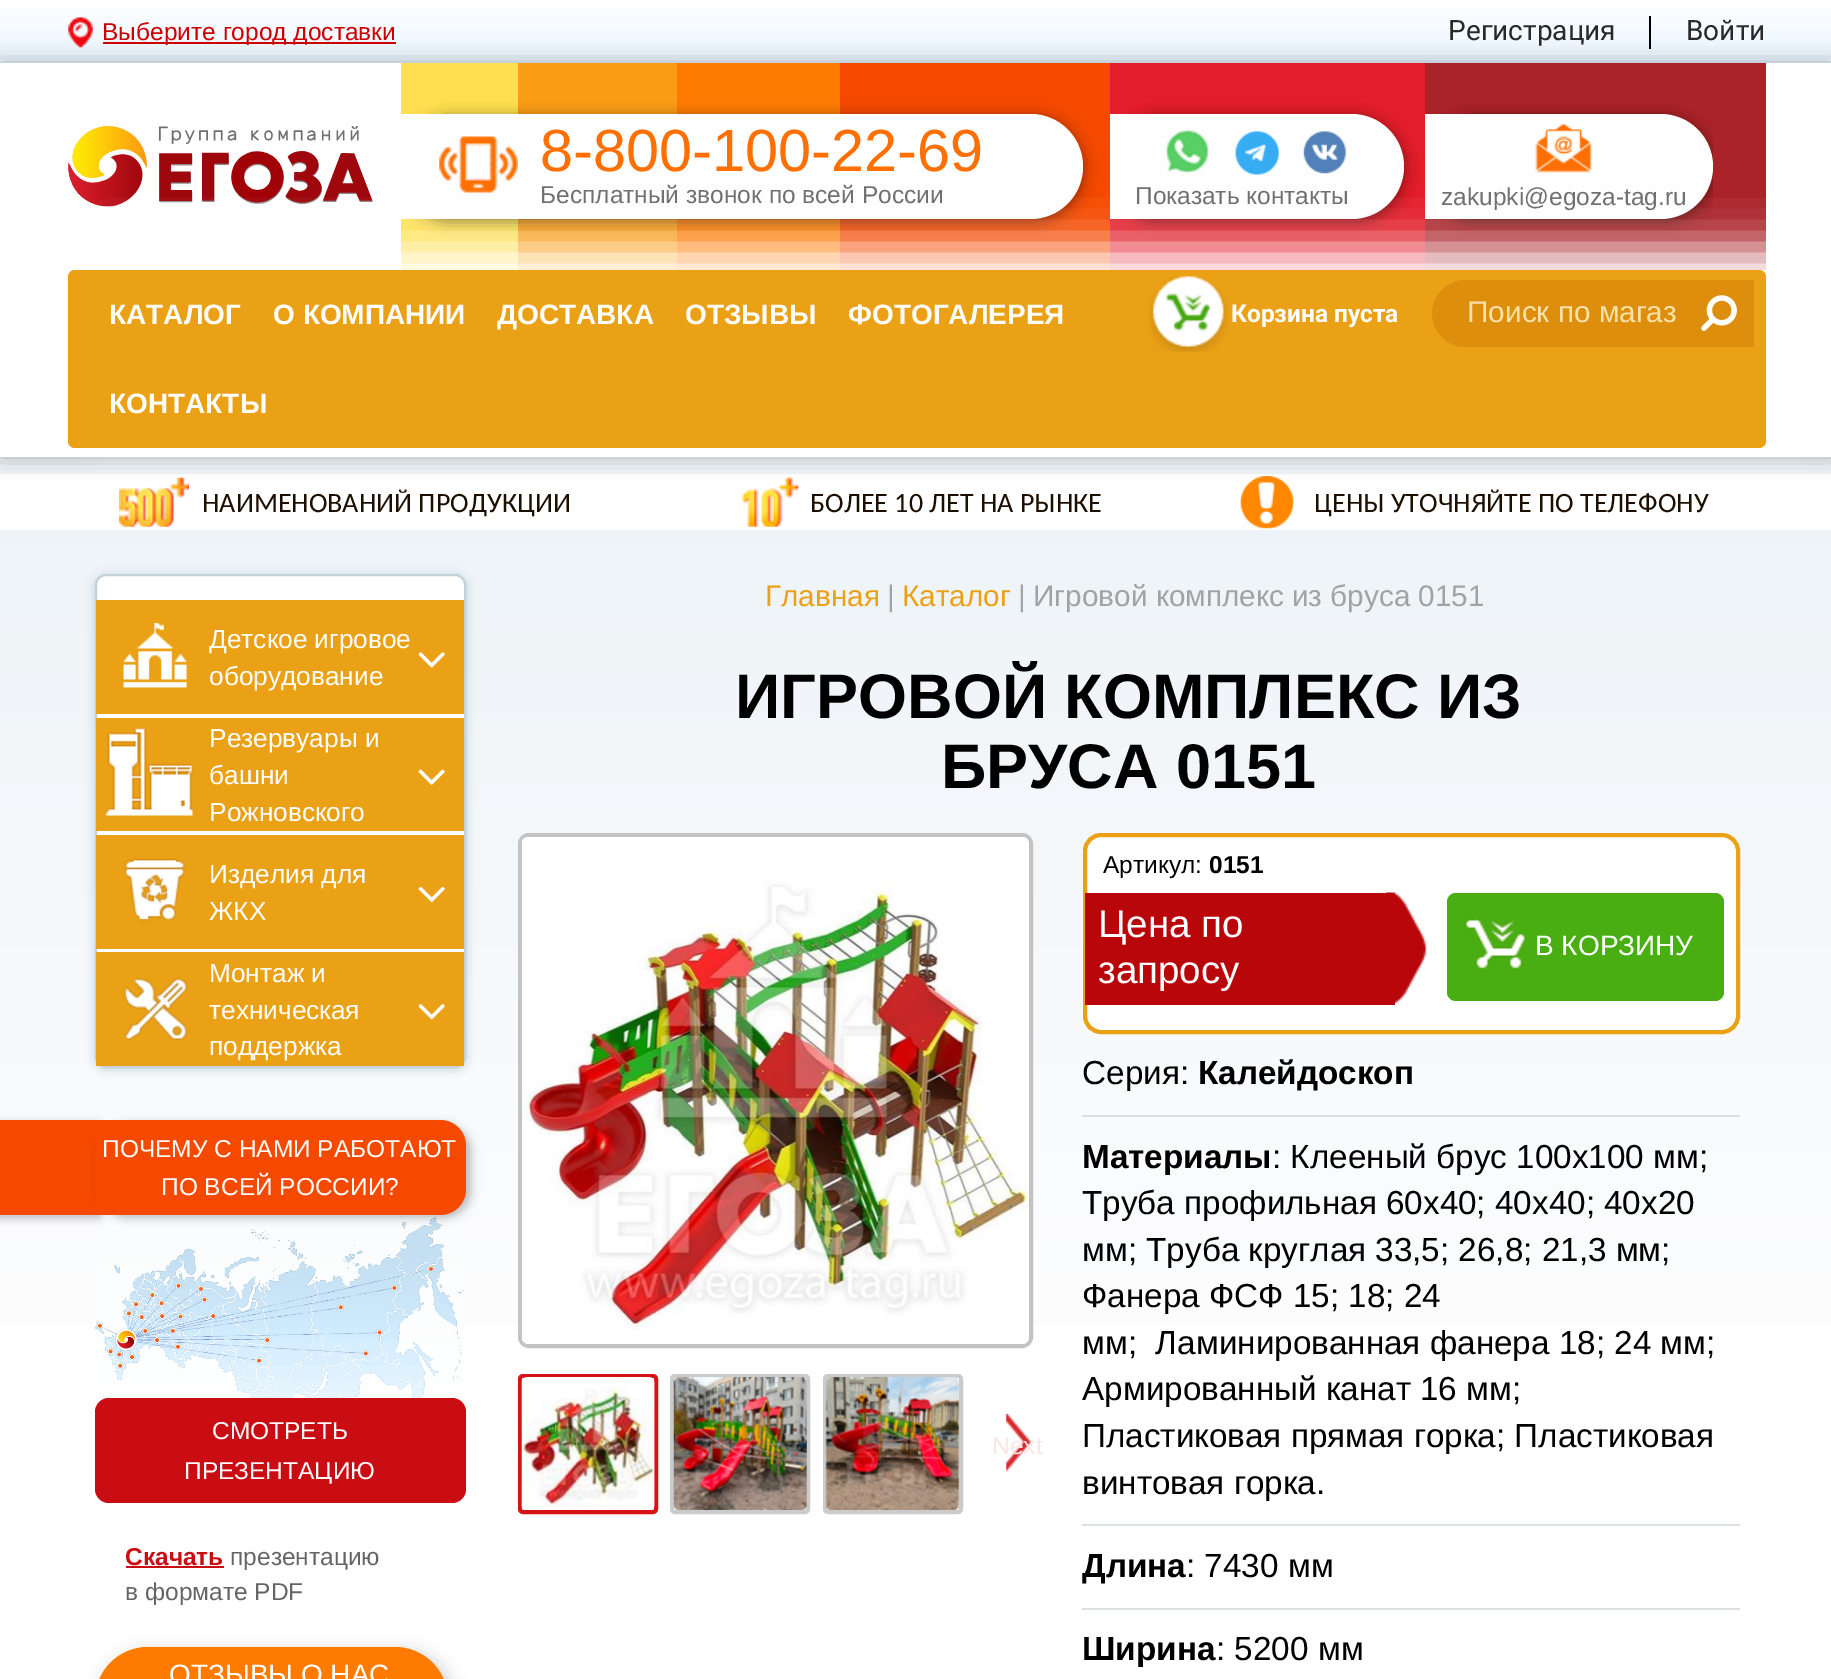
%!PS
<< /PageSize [1831 1679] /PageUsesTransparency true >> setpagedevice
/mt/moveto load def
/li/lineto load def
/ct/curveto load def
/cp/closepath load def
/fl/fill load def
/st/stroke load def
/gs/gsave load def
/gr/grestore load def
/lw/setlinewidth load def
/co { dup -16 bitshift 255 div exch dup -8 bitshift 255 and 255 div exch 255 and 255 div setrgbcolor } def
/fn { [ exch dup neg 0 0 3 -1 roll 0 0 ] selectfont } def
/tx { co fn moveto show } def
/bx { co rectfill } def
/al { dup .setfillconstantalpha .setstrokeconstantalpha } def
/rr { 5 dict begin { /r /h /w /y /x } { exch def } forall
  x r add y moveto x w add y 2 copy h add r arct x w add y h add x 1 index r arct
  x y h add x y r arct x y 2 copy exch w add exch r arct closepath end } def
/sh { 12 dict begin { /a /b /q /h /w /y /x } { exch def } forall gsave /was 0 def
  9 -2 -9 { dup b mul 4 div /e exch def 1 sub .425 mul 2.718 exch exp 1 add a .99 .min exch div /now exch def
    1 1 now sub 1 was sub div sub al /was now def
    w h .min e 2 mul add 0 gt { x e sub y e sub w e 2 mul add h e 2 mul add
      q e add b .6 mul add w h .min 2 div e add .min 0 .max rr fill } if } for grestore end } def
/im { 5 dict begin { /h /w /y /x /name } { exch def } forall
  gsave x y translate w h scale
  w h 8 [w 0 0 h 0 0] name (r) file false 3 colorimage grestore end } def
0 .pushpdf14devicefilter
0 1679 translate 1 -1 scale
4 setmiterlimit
0 0 1831 1679 16#FFFFFF bx
gs 0 7 mt 1831 7 li 1831 63 li 0 63 li cp clip newpath
<< /ShadingType 2 /ColorSpace /DeviceRGB /Coords [916 0 916 63] /Extend [true true] /Function << /FunctionType 2 /Domain [0 1] /C0 [1 1 1] /C1 [.914 .961 1] /N 1 >> >> shfill gr
(media/1.raw) 68 17 25 31 im
103 42 293 2 16#CC0000 bx
1649 16 2 33 16#000000 bx
gs 0 457 mt 1831 457 li 1831 1326 li 0 1326 li cp clip newpath
<< /ShadingType 2 /ColorSpace /DeviceRGB /Coords [916 285 916 1467] /Extend [true true] /Function << /FunctionType 2 /Domain [0 1] /C0 [.918 .945 .965] /C1 [1 1 1] /N 1 >> >> shfill gr
0 474 1831 56 16#FFFFFF bx
(media/10.raw) 119 477 70 50 im
(media/11.raw) 741 477 58 50 im
(media/12.raw) 1240 476 54 53 im
16#404040 co
0 63 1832 394 0 10.5 .4 sh
0 63 1831 394 16#FFFFFF bx
(media/2.raw) 68 126 305 81 im
401 63 117 207 16#FFDF50 bx
518 63 159 207 16#FA9C14 bx
677 63 163 207 16#FF7B00 bx
840 63 270 207 16#F54900 bx
1110 63 315 207 16#E31D2A bx
1425 63 341 207 16#AA2329 bx
gs
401 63 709 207 rectclip
16#000000 co
401 117 682 105 52.5 7 .45 sh
gr
16#FEFEFE co
401 114 mt 1030.5 114 li 1059.5 114 1083 137.5 1083 166.5 ct 1083 195.5 1059.5 219 1030.5 219 ct 401 219 li cp fl
(media/3.raw) 439 136 79 57 im
gs
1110 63 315 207 rectclip
16#000000 co
1110 117 294 105 52.5 7 .45 sh
gr
1110 114 mt 1351.5 114 li 1380.5 114 1404 137.5 1404 166.5 ct 1404 195.5 1380.5 219 1351.5 219 ct 1110 219 li cp fl
(media/4.raw) 1165 129 45 45 im
(media/5.raw) 1235 131 44 44 im
(media/6.raw) 1303 131 43 43 im
gs
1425 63 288 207 rectclip
16#000000 co
1425 117 288 105 52.5 7 .45 sh
gr
1425 114 mt 1660.5 114 li 1689.5 114 1713 137.5 1713 166.5 ct 1713 195.5 1689.5 219 1660.5 219 ct 1425 219 li cp fl
(media/7.raw) 1535 123 57 50 im
16#FFFFFF co
103 247 1698 178 7 22 1 sh
16#EBA115 co
68 270 1698 178 7 rr fl
(media/8.raw) 1148 276 81 76 im
16#DC8E0C co
1465.5 280 mt 1754 280 li 1754 347 li 1465.5 347 li 1447 347 1432 332 1432 313.5 ct 1432 295 1447 280 1465.5 280 ct cp fl
(media/9.raw) 1701 295 36 36 im
16#A6BED0 co
95 576 371 493 11 5 .75 sh
16#FFFFFF co
96 575 369 492 10 rr gs fl gr
16#C3D1DB co
2 lw
st
96 600 368 114 16#EBA115 bx
(media/13.raw) 123 623 64 65 im
(media/14.raw) 418 652 27 16 im
96 718 368 113 16#EBA115 bx
(media/15.raw) 105 728 88 88 im
(media/16.raw) 418 769 27 16 im
96 835 368 114 16#EBA115 bx
(media/17.raw) 124 858 61 63 im
(media/18.raw) 418 886 27 16 im
96 952 368 114 16#EBA115 bx
(media/19.raw) 124 978 64 62 im
(media/20.raw) 418 1004 27 16 im
(media/21.raw) 95 1217 370 181 im
16#000000 co
-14 1124 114 94 0 4.5 .25 sh
0 1120 95 95 16#F54900 bx
16#000000 co
100 1124 371 94 26 4.5 .25 sh
16#F54900 co
95 1120 mt 440 1120 li 454.5 1120 466 1131.5 466 1146 ct 466 1189 li 466 1203.5 454.5 1215 440 1215 ct 95 1215 li cp fl
16#CA0D13 co
95 1398 371 105 14 rr fl
126 1566 98 2 16#CA0D13 bx
16#000000 co
100 1652 353 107 53 9 .2 sh
16#FF7B00 co
95 1647 353 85 53 rr fl
16#C3C3C3 co
4 lw
520 835 511 511 9 rr st
(media/22.raw) 522 837 507 507 im
16#D71116 co
520 1376 136 136 3 rr st
(media/23.raw) 521 1377 134 132 im
16#CBCBCB co
672 1376 136 136 3 rr st
(media/24.raw) 673 1377 134 133 im
825 1376 136 136 3 rr st
(media/25.raw) 825 1377 135 133 im
(media/26.raw) 1006 1414 25 58 im
16#FFFFFF co
1085 835 653 197 16 rr gs fl gr
16#EBA115 co
st
1085 893 310 112 16#B9060B bx
(media/27.raw) 1386 892 41 113 im
16#49AE12 co
1447 893 277 108 9 rr fl
(media/28.raw) 1465 918 61 52 im
1082 1115 658 2 16#DEE1E2 bx
1082 1524 658 2 16#DEE1E2 bx
1082 1608 658 2 16#DEE1E2 bx
(Выберите город доставки) 102 40 /LiberationSans-Regular 24.5 16#CC0000 tx
(Регистрация) 1448 40 /Roboto-Regular 28 16#292929 tx
(Войти) 1686 40 /Roboto-Regular 28 16#292929 tx
(8-800-100-22-69) 540 171 /LiberationSans-Regular 59.5 16#FF6F01 tx
(Бесплатный звонок по всей России) 540 203 /LiberationSans-Regular 24.5 16#707070 tx
(Показать контакты) 1135 204 /LiberationSans-Regular 24.5 16#707070 tx
(zakupki@egoza-tag.ru) 1441 205 /LiberationSans-Regular 24.5 16#707070 tx
(КАТАЛОГ) 109 324 /LiberationSans-Bold 28 16#FFFFFF tx
(О КОМПАНИИ) 273 324 /LiberationSans-Bold 28 16#FFFFFF tx
(ДОСТАВКА) 497 324 /LiberationSans-Bold 28 16#FFFFFF tx
(ОТЗЫВЫ) 685 324 /LiberationSans-Bold 28 16#FFFFFF tx
(ФОТОГАЛЕРЕЯ) 848 324 /LiberationSans-Bold 28 16#FFFFFF tx
(КОНТАКТЫ) 109 413 /LiberationSans-Bold 28 16#FFFFFF tx
(Корзина пуста) 1231 322 /Roboto-Bold 24.5 16#FFFFFF tx
(Поиск по магаз) 1467 322 /LiberationSans-Regular 29.75 16#FFE1A9 tx
(НАИМЕНОВАНИЙ ПРОДУКЦИИ) 202 512 /Carlito-Regular 28 16#1D0F00 tx
(БОЛЕЕ 10 ЛЕТ НА РЫНКЕ) 810 512 /Carlito-Regular 28 16#1D0F00 tx
(ЦЕНЫ УТОЧНЯЙТЕ ПО ТЕЛЕФОНУ) 1314 512 /Carlito-Regular 28 16#1D0F00 tx
(Детское игровое) 209 648 /LiberationSans-Regular 26.25 16#FFFFFF tx
(оборудование) 209 685 /LiberationSans-Regular 26.25 16#FFFFFF tx
(Резервуары и) 209 747 /LiberationSans-Regular 26.25 16#FFFFFF tx
(башни) 209 784 /LiberationSans-Regular 26.25 16#FFFFFF tx
(Рожновского) 209 821 /LiberationSans-Regular 26.25 16#FFFFFF tx
(Изделия для) 209 883 /LiberationSans-Regular 26.25 16#FFFFFF tx
(ЖКХ) 209 920 /LiberationSans-Regular 26.25 16#FFFFFF tx
(Монтаж и) 209 982 /LiberationSans-Regular 26.25 16#FFFFFF tx
(техническая) 209 1019 /LiberationSans-Regular 26.25 16#FFFFFF tx
(поддержка) 209 1055 /LiberationSans-Regular 26.25 16#FFFFFF tx
(ПОЧЕМУ С НАМИ РАБОТАЮТ) 102 1157 /LiberationSans-Regular 24.5 16#FFFFFF tx
(ПО ВСЕЙ РОССИИ?) 161 1195 /LiberationSans-Regular 24.5 16#FFFFFF tx
(СМОТРЕТЬ) 212 1439 /LiberationSans-Regular 24.5 16#FFFFFF tx
(ПРЕЗЕНТАЦИЮ) 184 1479 /LiberationSans-Regular 24.5 16#FFFFFF tx
(Скачать) 125 1565 /LiberationSans-Bold 24.5 16#CA0D13 tx
(презентацию) 230 1565 /LiberationSans-Regular 24.5 16#656565 tx
(в формате PDF) 125 1600 /LiberationSans-Regular 24.5 16#656565 tx
(ОТЗЫВЫ О НАС) 169 1684 /LiberationSans-Regular 28 16#FFFFFF tx
(Главная) 765 606 /LiberationSans-Regular 29.75 16#EBA115 tx
(|) 887 606 /LiberationSans-Regular 29.75 16#A2A2A2 tx
(Каталог) 902 606 /LiberationSans-Regular 29.75 16#EBA115 tx
(|) 1018 606 /LiberationSans-Regular 29.75 16#A2A2A2 tx
(Игровой комплекс из бруса 0151) 1033 606 /LiberationSans-Regular 29.75 16#A2A2A2 tx
(ИГРОВОЙ КОМПЛЕКС ИЗ) 735 718 /LiberationSans-Bold 63 16#000000 tx
(БРУСА 0151) 941 788 /LiberationSans-Bold 63 16#000000 tx
(Next) 992 1454 /LiberationSans-Regular 24.5 16#FBE6E6 tx
(Артикул:) 1103 873 /LiberationSans-Regular 24.5 16#000000 tx
(0151) 1209 873 /LiberationSans-Bold 24.5 16#000000 tx
(Цена по) 1098 937 /LiberationSans-Regular 38.5 16#FFFFFF tx
(запросу) 1098 983 /LiberationSans-Regular 38.5 16#FFFFFF tx
(В КОРЗИНУ) 1535 955 /LiberationSans-Regular 28 16#FFFFFF tx
(Серия:) 1082 1084 /LiberationSans-Regular 33.25 16#000000 tx
(Калейдоскоп) 1198 1084 /LiberationSans-Bold 33.25 16#000000 tx
(Материалы) 1082 1168 /LiberationSans-Bold 33.25 16#000000 tx
(: Клееный брус 100х100 мм;) 1272 1168 /LiberationSans-Regular 33.25 16#000000 tx
(Труба профильная 60х40; 40х40; 40х20) 1082 1214 /LiberationSans-Regular 33.25 16#000000 tx
(мм; Труба круглая 33,5; 26,8; 21,3 мм;) 1082 1261 /LiberationSans-Regular 33.25 16#000000 tx
(Фанера ФСФ 15; 18; 24) 1082 1307 /LiberationSans-Regular 33.25 16#000000 tx
(мм;  Ламинированная фанера 18; 24 мм;) 1082 1354 /LiberationSans-Regular 33.25 16#000000 tx
(Армированный канат 16 мм;) 1082 1400 /LiberationSans-Regular 33.25 16#000000 tx
(Пластиковая прямая горка; Пластиковая) 1082 1447 /LiberationSans-Regular 33.25 16#000000 tx
(винтовая горка.) 1082 1494 /LiberationSans-Regular 33.25 16#000000 tx
(Длина) 1082 1577 /LiberationSans-Bold 33.25 16#000000 tx
(: 7430 мм) 1186 1577 /LiberationSans-Regular 33.25 16#000000 tx
(Ширина) 1082 1660 /LiberationSans-Bold 33.25 16#000000 tx
(: 5200 мм) 1216 1660 /LiberationSans-Regular 33.25 16#000000 tx
.poppdf14devicefilter showpage
